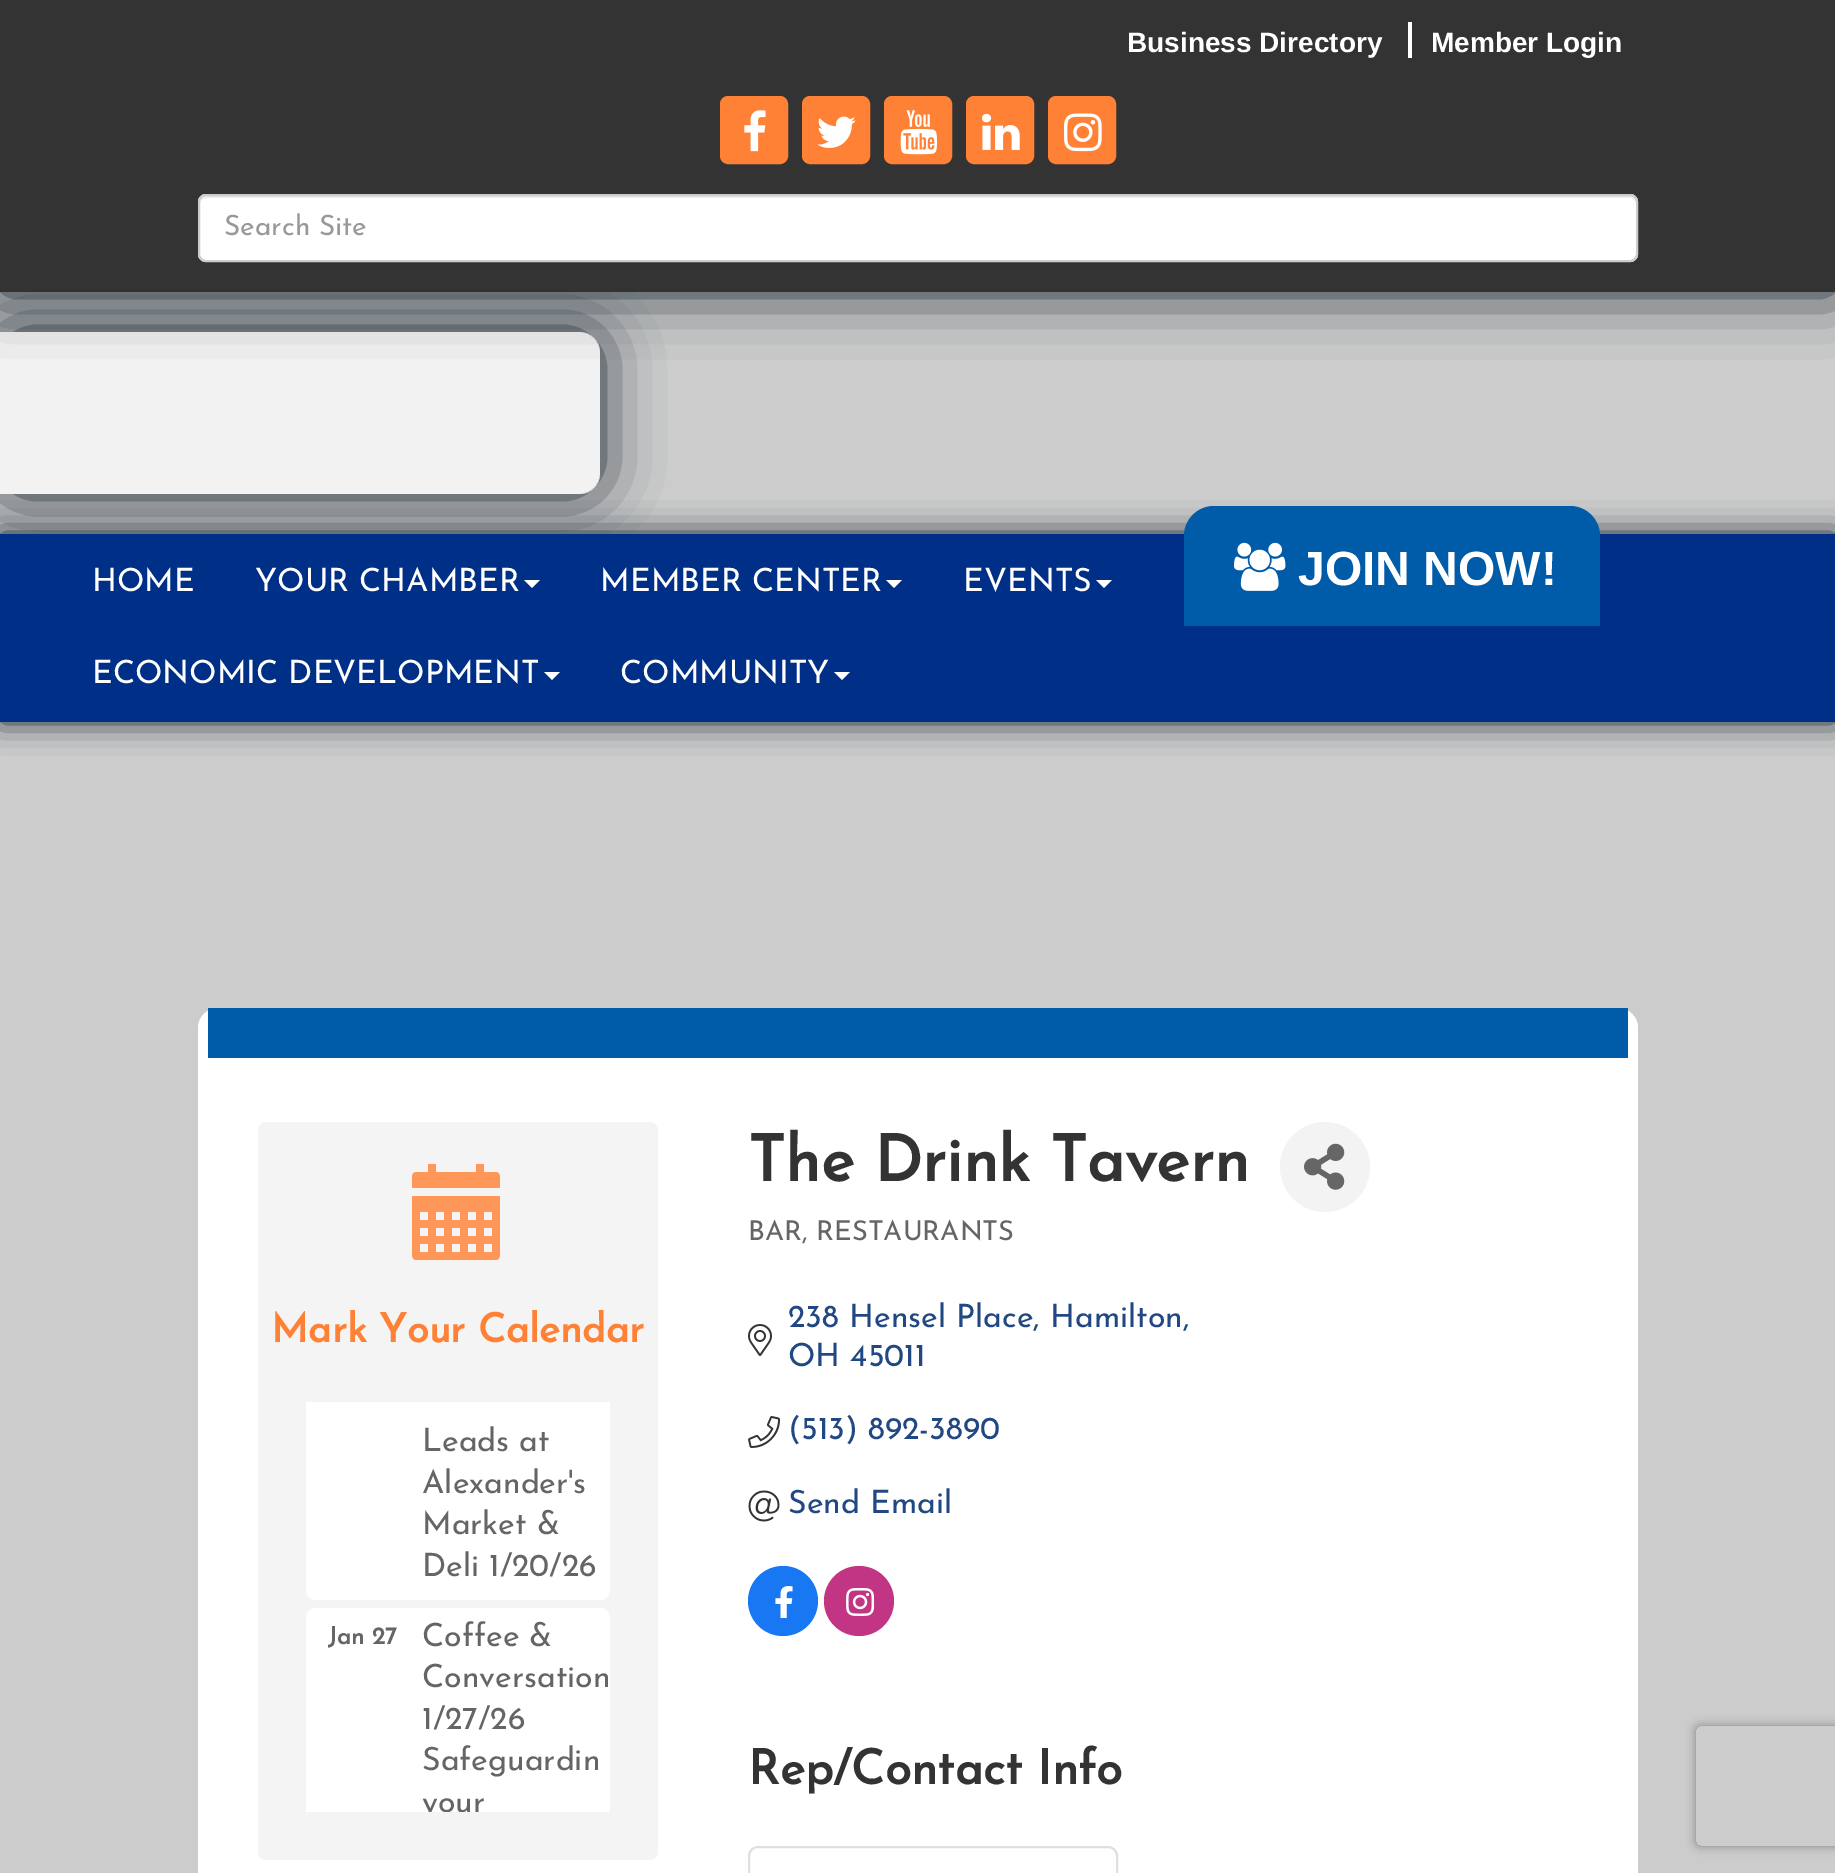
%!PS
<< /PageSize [1835 1873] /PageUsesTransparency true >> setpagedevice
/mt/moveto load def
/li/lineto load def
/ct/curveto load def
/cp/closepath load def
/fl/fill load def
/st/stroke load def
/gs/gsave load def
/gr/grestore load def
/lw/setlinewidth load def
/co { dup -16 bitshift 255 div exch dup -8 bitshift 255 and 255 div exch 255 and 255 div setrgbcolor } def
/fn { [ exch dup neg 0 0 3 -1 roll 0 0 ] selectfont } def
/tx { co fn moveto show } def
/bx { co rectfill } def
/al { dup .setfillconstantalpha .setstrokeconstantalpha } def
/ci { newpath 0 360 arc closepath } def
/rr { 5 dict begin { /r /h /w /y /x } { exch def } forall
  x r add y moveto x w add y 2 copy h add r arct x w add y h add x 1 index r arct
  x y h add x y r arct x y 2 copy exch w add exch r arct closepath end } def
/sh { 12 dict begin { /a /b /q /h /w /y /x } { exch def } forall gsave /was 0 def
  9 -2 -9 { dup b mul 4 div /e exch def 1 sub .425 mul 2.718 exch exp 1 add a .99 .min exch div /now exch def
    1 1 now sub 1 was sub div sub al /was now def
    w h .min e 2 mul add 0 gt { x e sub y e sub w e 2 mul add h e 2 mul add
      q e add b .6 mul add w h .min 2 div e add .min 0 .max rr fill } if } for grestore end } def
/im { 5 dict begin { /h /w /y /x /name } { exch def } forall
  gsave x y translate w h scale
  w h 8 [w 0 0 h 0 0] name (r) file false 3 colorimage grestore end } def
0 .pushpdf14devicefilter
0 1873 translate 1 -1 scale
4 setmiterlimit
0 0 1835 1873 16#CCCCCC bx
gs
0 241 mt 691 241 li 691 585 li 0 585 li cp 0 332 mt 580 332 li 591 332 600 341 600 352 ct 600 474 li 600 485 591 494 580 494 ct 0 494 li cp eoclip newpath
16#13212B co
0 332 600 162 20 30 1 sh
gr
0.75 al
16#FFFFFF co
0 332 mt 580 332 li 591 332 600 341 600 352 ct 600 474 li 600 485 591 494 580 494 ct 0 494 li cp fl
1 al
16#13212B co
0 0 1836 292 0 30 1 sh
0 0 1835 292 16#333333 bx
1408 22 4 36 16#FFFFFF bx
16#FF8135 co
721 97 66 66 7 rr gs fl gr
2 lw
st
(media/1.raw) 744 110 22 42 im
803 97 66 66 7 rr gs fl gr
st
(media/2.raw) 817 116 39 32 im
885 97 66 66 7 rr gs fl gr
st
(media/3.raw) 900 110 38 45 im
967 97 66 66 7 rr gs fl gr
st
(media/4.raw) 982 113 38 37 im
1049 97 66 66 7 rr gs fl gr
st
(media/5.raw) 1064 113 38 39 im
16#FFFFFF co
198 194 1440 68 8 rr fl
16#ECECEC co
206 198 mt 1630 198 li 1633 198 1636 201 1636 204 ct 1636 200 1635 196 1630 196 ct 206 196 li 201 196 200 200 200 204 ct 200 201 203 198 206 198 ct cp fl
16#CCCCCC co
199 195 1438 66 7 rr st
16#13212B co
0 534 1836 188 0 15 1 sh
0 534 1835 188 16#002F87 bx
16#FFFFFF co
524 580 mt 540 580 li 532 588 li cp fl
886 580 mt 902 580 li 894 588 li cp fl
1096 580 mt 1112 580 li 1104 588 li cp fl
544 672 mt 560 672 li 552 680 li cp fl
834 672 mt 850 672 li 842 680 li cp fl
16#005CA8 co
1214 506 mt 1570 506 li 1586.5 506 1600 519.5 1600 536 ct 1600 626 li 1184 626 li 1184 536 li 1184 519.5 1197.5 506 1214 506 ct cp fl
(media/6.raw) 1234 542 52 49 im
16#FFFFFF co
198 1008 1440 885 20 rr fl
208 1008 1420 50 16#005CA8 bx
16#F4F4F4 co
258 1122 400 738 8 rr fl
(media/7.raw) 412 1164 88 96 im
16#FFFFFF co
306 1402 mt 610 1402 li 610 1590 li 610 1595.5 605.5 1600 600 1600 ct 316 1600 li 310.5 1600 306 1595.5 306 1590 ct cp fl
316 1608 mt 600 1608 li 605.5 1608 610 1612.5 610 1618 ct 610 1812 li 306 1812 li 306 1618 li 306 1612.5 310.5 1608 316 1608 ct cp fl
16#F3F3F3 co
1325 1167 45 ci fl
(media/8.raw) 1304 1143 41 47 im
(media/9.raw) 748 1324 24 32 im
(media/10.raw) 748 1416 33 32 im
(media/11.raw) 748 1490 32 32 im
16#1877F2 co
783 1601 35 ci fl
(media/12.raw) 775 1586 18 32 im
16#C13584 co
859 1601 35 ci fl
(media/13.raw) 846 1588 29 28 im
16#DFDFDF co
749 1847 368 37 9 rr st
gs
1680 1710 mt 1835 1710 li 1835 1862 li 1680 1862 li cp 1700 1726 mt 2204 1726 li 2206 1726 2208 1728 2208 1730 ct 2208 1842 li 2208 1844 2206 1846 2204 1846 ct 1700 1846 li 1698 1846 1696 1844 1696 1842 ct 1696 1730 li 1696 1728 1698 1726 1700 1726 ct cp eoclip newpath
16#808080 co
1696 1726 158 120 4 5 1 sh
gr
(Business Directory) 1127 52 /LiberationSans-Bold 28 16#FFFFFF tx
(Member Login) 1431 52 /LiberationSans-Bold 28 16#FFFFFF tx
(Search Site) 224 235 /JosefinSans-Thin 28 16#999999 tx
(HOME) 92 591 /JosefinSans-Thin 32 16#FFFFFF tx
(YOUR CHAMBER) 255 591 /JosefinSans-Thin 32 16#FFFFFF tx
(MEMBER CENTER) 600 591 /JosefinSans-Thin 32 16#FFFFFF tx
(EVENTS) 963 591 /JosefinSans-Thin 32 16#FFFFFF tx
(ECONOMIC DEVELOPMENT) 92 683 /JosefinSans-Thin 32 16#FFFFFF tx
(COMMUNITY) 620 683 /JosefinSans-Thin 32 16#FFFFFF tx
(JOIN NOW!) 1298 585 /LiberationSans-Bold 48 16#FFFFFF tx
(Mark Your Calendar) 271 1342 /JosefinSans-Bold 40 16#FF8135 tx
(Leads at) 422 1451 /JosefinSans-Thin 32 16#656565 tx
(Alexander's) 422 1493 /JosefinSans-Thin 32 16#656565 tx
(Market &) 422 1534 /JosefinSans-Thin 32 16#656565 tx
(Deli 1/20/26) 422 1576 /JosefinSans-Thin 32 16#656565 tx
(Jan 27) 328 1644 /JosefinSans-Bold 24 16#656565 tx
(Coffee &) 422 1646 /JosefinSans-Thin 32 16#656565 tx
(Conversation) 422 1687 /JosefinSans-Thin 32 16#656565 tx
(1/27/26) 422 1729 /JosefinSans-Thin 32 16#656565 tx
(Safeguardin) 422 1770 /JosefinSans-Thin 32 16#656565 tx
gs
306 1402 304 410 rectclip
(your) 422 1812 /JosefinSans-Thin 32 16#656565 tx
gr
(The Drink Tavern) 748 1181 /JosefinSans-Bold 64 16#333333 tx
(BAR, RESTAURANTS) 748 1240 /JosefinSans-Thin 27.25 16#656565 tx
(238 Hensel Place, Hamilton,) 788 1327 /JosefinSans-Thin 32 16#224884 tx
(OH 45011) 788 1366 /JosefinSans-Thin 32 16#224884 tx
(\(513\) 892-3890) 788 1439 /JosefinSans-Thin 32 16#224884 tx
(Send Email) 788 1513 /JosefinSans-Thin 32 16#224884 tx
(Rep/Contact Info) 748 1784 /JosefinSans-Bold 48 16#333333 tx
.poppdf14devicefilter showpage
